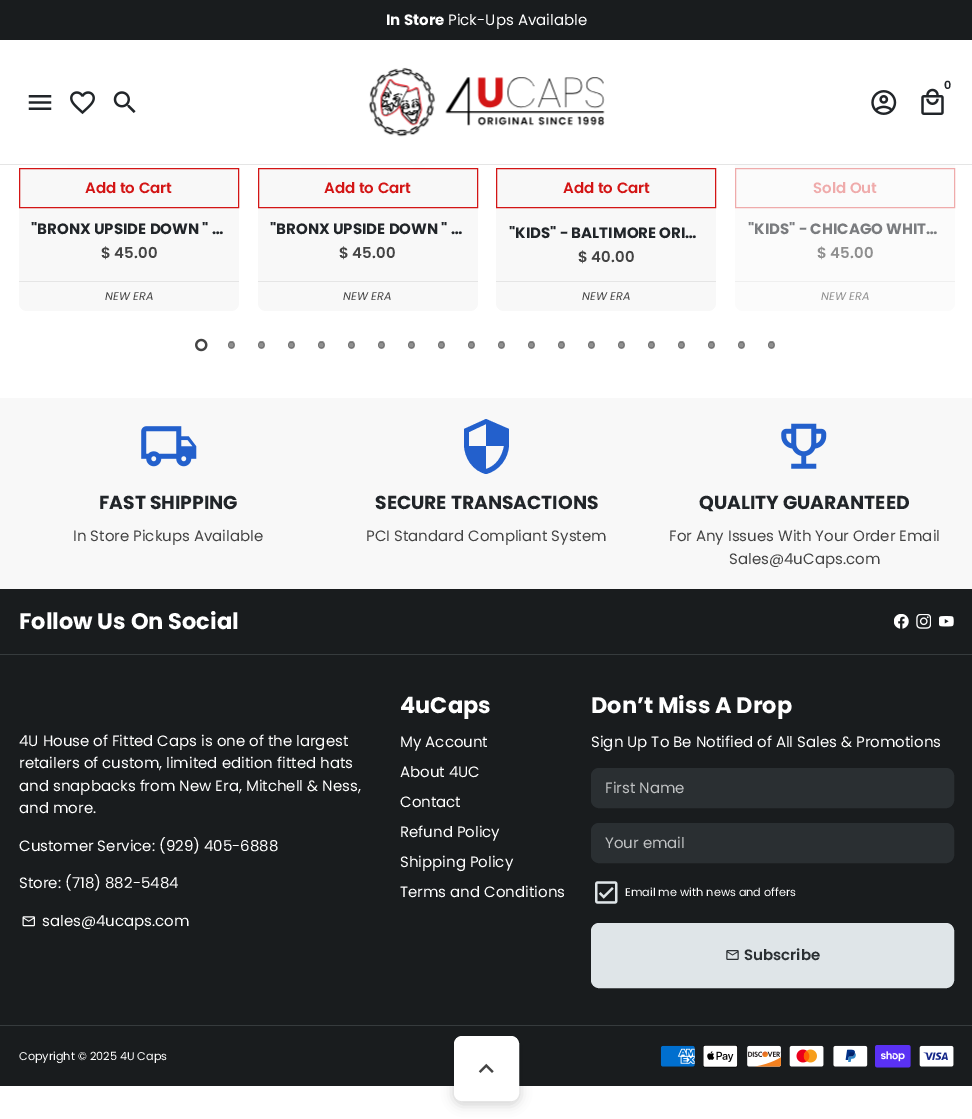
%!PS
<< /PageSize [972 1119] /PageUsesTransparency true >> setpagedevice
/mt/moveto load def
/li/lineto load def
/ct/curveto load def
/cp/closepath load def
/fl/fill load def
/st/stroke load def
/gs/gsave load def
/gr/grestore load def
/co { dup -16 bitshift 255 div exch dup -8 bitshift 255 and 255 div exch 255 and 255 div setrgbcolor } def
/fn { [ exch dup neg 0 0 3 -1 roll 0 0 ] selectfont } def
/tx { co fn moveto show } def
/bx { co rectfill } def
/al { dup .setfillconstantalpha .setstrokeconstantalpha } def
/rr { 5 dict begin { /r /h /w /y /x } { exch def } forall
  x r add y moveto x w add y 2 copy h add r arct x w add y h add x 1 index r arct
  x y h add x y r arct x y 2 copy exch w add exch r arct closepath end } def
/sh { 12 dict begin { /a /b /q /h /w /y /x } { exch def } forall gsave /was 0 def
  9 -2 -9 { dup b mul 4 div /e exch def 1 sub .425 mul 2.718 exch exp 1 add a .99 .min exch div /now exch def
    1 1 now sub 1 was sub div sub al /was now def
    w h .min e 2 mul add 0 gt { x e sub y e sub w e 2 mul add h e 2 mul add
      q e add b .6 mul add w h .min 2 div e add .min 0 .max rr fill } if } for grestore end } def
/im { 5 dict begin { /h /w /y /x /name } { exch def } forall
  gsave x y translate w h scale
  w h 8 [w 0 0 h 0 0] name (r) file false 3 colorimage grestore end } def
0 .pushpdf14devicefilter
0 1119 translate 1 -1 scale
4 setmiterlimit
0 0 972 1119 16#FFFFFF bx
16#F8F8F8 co
19 -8 220 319 8 rr fl
258 -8 220 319 8 rr fl
496 -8 220 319 8 rr fl
16#FBFBFB co
735 -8 220 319 8 rr fl
0 0 972 40 16#191C1E bx
19 40 936 124 16#FFFFFF bx
0 164 972 1 16#E5E5E5 bx
(media/1.raw) 368 67 237 70 im
(media/2.raw) 921 88 23 27 im
(media/3.raw) 871 90 26 25 im
(media/4.raw) 28 95 24 15 im
(media/5.raw) 70 91 25 24 im
(media/6.raw) 113 91 23 22 im
(media/7.raw) 19 165 220 3 im
16#D31515 co
19.5 168.5 219 39 rectstroke
19 281 220 1 16#E5E5E5 bx
(media/8.raw) 258 165 220 3 im
16#D31515 co
258.5 168.5 219 39 rectstroke
258 281 220 1 16#E5E5E5 bx
(media/9.raw) 496 165 220 3 im
16#D31515 co
496.5 168.5 219 39 rectstroke
496 281 220 1 16#E5E5E5 bx
16#EFABAB co
735.5 168.5 219 39 rectstroke
735 281 220 1 16#EFEFEF bx
(media/10.raw) 195 338 13 14 im
16#8F8F8F co
228 341 7 8 3.5 rr fl
(media/11.raw) 228 342 7 7 im
258 341 7 8 3.5 rr fl
(media/11.raw) 258 342 7 7 im
288 341 7 8 3.5 rr fl
(media/11.raw) 288 342 7 7 im
318 341 7 8 3.5 rr fl
(media/11.raw) 318 342 7 7 im
348 341 7 8 3.5 rr fl
(media/11.raw) 348 342 7 7 im
378 341 7 8 3.5 rr fl
(media/11.raw) 378 342 7 7 im
408 341 7 8 3.5 rr fl
(media/11.raw) 408 342 7 7 im
438 341 7 8 3.5 rr fl
(media/11.raw) 438 342 7 7 im
468 341 7 8 3.5 rr fl
(media/11.raw) 468 342 7 7 im
498 341 7 8 3.5 rr fl
(media/11.raw) 498 342 7 7 im
528 341 7 8 3.5 rr fl
(media/11.raw) 528 342 7 7 im
558 341 7 8 3.5 rr fl
(media/11.raw) 558 342 7 7 im
588 341 7 8 3.5 rr fl
(media/11.raw) 588 342 7 7 im
618 341 7 8 3.5 rr fl
(media/11.raw) 618 342 7 7 im
648 341 7 8 3.5 rr fl
(media/11.raw) 648 342 7 7 im
678 341 7 8 3.5 rr fl
(media/11.raw) 678 342 7 7 im
708 341 7 8 3.5 rr fl
(media/11.raw) 708 342 7 7 im
738 341 7 8 3.5 rr fl
(media/11.raw) 738 342 7 7 im
768 341 7 8 3.5 rr fl
(media/11.raw) 768 342 7 7 im
0 398 972 191 16#F8F8F8 bx
(media/12.raw) 141 426 56 41 im
16#2360CC co
486 419 mt 464 429 li 464 444 li 464 458 473 471 486 474 ct 499 471 509 458 509 444 ct 509 429 li cp 486 446 mt 504 446 li 502 457 496 466 486 469 ct 486 446 li 469 446 li 469 432 li 486 424 li cp fl
(media/13.raw) 781 423 46 46 im
0 589 972 497 16#191C1E bx
0 654 972 1 16#363B3D bx
(media/14.raw) 894 614 15 15 im
(media/15.raw) 916 614 15 15 im
(media/16.raw) 939 616 15 11 im
(media/17.raw) 22 916 13 11 im
16#2A2F32 co
591.5 768.5 362 39 7.5 rr gs fl gr
st
591.5 823.5 362 39 7.5 rr gs fl gr
st
(media/18.raw) 595 881 23 23 im
16#DFE5E8 co
591.5 923.5 362 64 7.5 rr gs fl gr
st
(media/19.raw) 726 950 13 10 im
0 1025 972 1 16#363B3D bx
(media/20.raw) 660 1045 35 22 im
(media/21.raw) 703 1045 35 23 im
(media/22.raw) 747 1045 34 22 im
(media/23.raw) 789 1045 35 22 im
(media/24.raw) 833 1045 35 22 im
(media/25.raw) 875 1045 36 23 im
(media/26.raw) 919 1045 35 22 im
16#000000 co
454 1039 65 65 8 6 .2 sh
16#FFFFFF co
454.5 1036.5 64 64 7.5 rr gs fl gr
st
(media/27.raw) 478 1063 16 10 im
(In Store) 386 25 /Poppins-Bold 15 16#FFFFFF tx
(Pick-Ups Available) 448 25 /Poppins-Regular 15 16#FFFFFF tx
(0) 944 89 /Poppins-SemiBold 11.25 16#212529 tx
(Add to Cart) 85 193 /Poppins-SemiBold 15 16#D31515 tx
("BRONX UPSIDE DOWN " …) 31 234 /Poppins-Bold 15 16#212529 tx
($ 45.00) 101 258 /Poppins-SemiBold 15 16#444444 tx
(NEW ERA) 105 300 /Poppins-Italic 11.25 16#444444 tx
(Add to Cart) 324 193 /Poppins-SemiBold 15 16#D31515 tx
("BRONX UPSIDE DOWN " …) 270 234 /Poppins-Bold 15 16#212529 tx
($ 45.00) 339 258 /Poppins-SemiBold 15 16#444444 tx
(NEW ERA) 343 300 /Poppins-Italic 11.25 16#444444 tx
(Add to Cart) 563 193 /Poppins-SemiBold 15 16#D31515 tx
("KIDS" - BALTIMORE ORI…) 509 238 /Poppins-Bold 15 16#212529 tx
($ 40.00) 578 262 /Poppins-SemiBold 15 16#444444 tx
(NEW ERA) 582 300 /Poppins-Italic 11.25 16#444444 tx
(Sold Out) 813 193 /Poppins-SemiBold 15 16#EFABAB tx
("KIDS" - CHICAGO WHIT…) 748 234 /Poppins-Bold 15 16#7A7C7F tx
($ 45.00) 817 258 /Poppins-SemiBold 15 16#8F8F8F tx
(NEW ERA) 821 300 /Poppins-Italic 11.25 16#8F8F8F tx
(FAST SHIPPING) 99 509 /Poppins-Bold 18.75 16#212529 tx
(In Store Pickups Available) 73 541 /Poppins-Regular 15 16#444444 tx
(SECURE TRANSACTIONS) 375 509 /Poppins-Bold 18.75 16#212529 tx
(PCI Standard Compliant System) 366 541 /Poppins-Regular 15 16#444444 tx
(QUALITY GUARANTEED) 699 509 /Poppins-Bold 18.75 16#212529 tx
(For Any Issues With Your Order Email) 669 541 /Poppins-Regular 15 16#444444 tx
(Sales@4uCaps.com) 729 564 /Poppins-Regular 15 16#444444 tx
(Follow Us On Social) 19 629 /Poppins-Bold 22.5 16#FFFFFF tx
(4U House of Fitted Caps is one of the largest) 19 746 /Poppins-Regular 15 16#FFFFFF tx
(retailers of custom, limited edition fitted hats) 19 768 /Poppins-Regular 15 16#FFFFFF tx
(and snapbacks from New Era, Mitchell & Ness,) 19 791 /Poppins-Regular 15 16#FFFFFF tx
(and more.) 19 813 /Poppins-Regular 15 16#FFFFFF tx
(Customer Service: \(929\) 405-6888) 19 851 /Poppins-Regular 15 16#FFFFFF tx
(Store: \(718\) 882-5484) 19 888 /Poppins-Regular 15 16#FFFFFF tx
(sales@4ucaps.com) 42 926 /Poppins-Regular 15 16#FFFFFF tx
(4uCaps) 400 713 /Poppins-Bold 22.5 16#FFFFFF tx
(My Account) 400 747 /Poppins-Regular 15 16#FFFFFF tx
(About 4UC) 400 777 /Poppins-Regular 15 16#FFFFFF tx
(Contact) 400 807 /Poppins-Regular 15 16#FFFFFF tx
(Refund Policy) 400 837 /Poppins-Regular 15 16#FFFFFF tx
(Shipping Policy) 400 867 /Poppins-Regular 15 16#FFFFFF tx
(Terms and Conditions) 400 897 /Poppins-Regular 15 16#FFFFFF tx
(Don’t Miss A Drop) 591 713 /Poppins-Bold 22.5 16#FFFFFF tx
(Sign Up To Be Notified of All Sales & Promotions) 591 747 /Poppins-Regular 15 16#FFFFFF tx
(First Name) 605 793 /Poppins-Regular 15 16#BFC1C2 tx
(Your email) 605 848 /Poppins-Regular 15 16#BFC1C2 tx
(Email me with news and offers) 625 896 /Poppins-Regular 11.25 16#FFFFFF tx
(Subscribe) 744 960 /Poppins-SemiBold 15 16#2A2F32 tx
(Copyright © 2025 4U Caps) 19 1060 /Poppins-Regular 11.25 16#FFFFFF tx
.poppdf14devicefilter showpage
